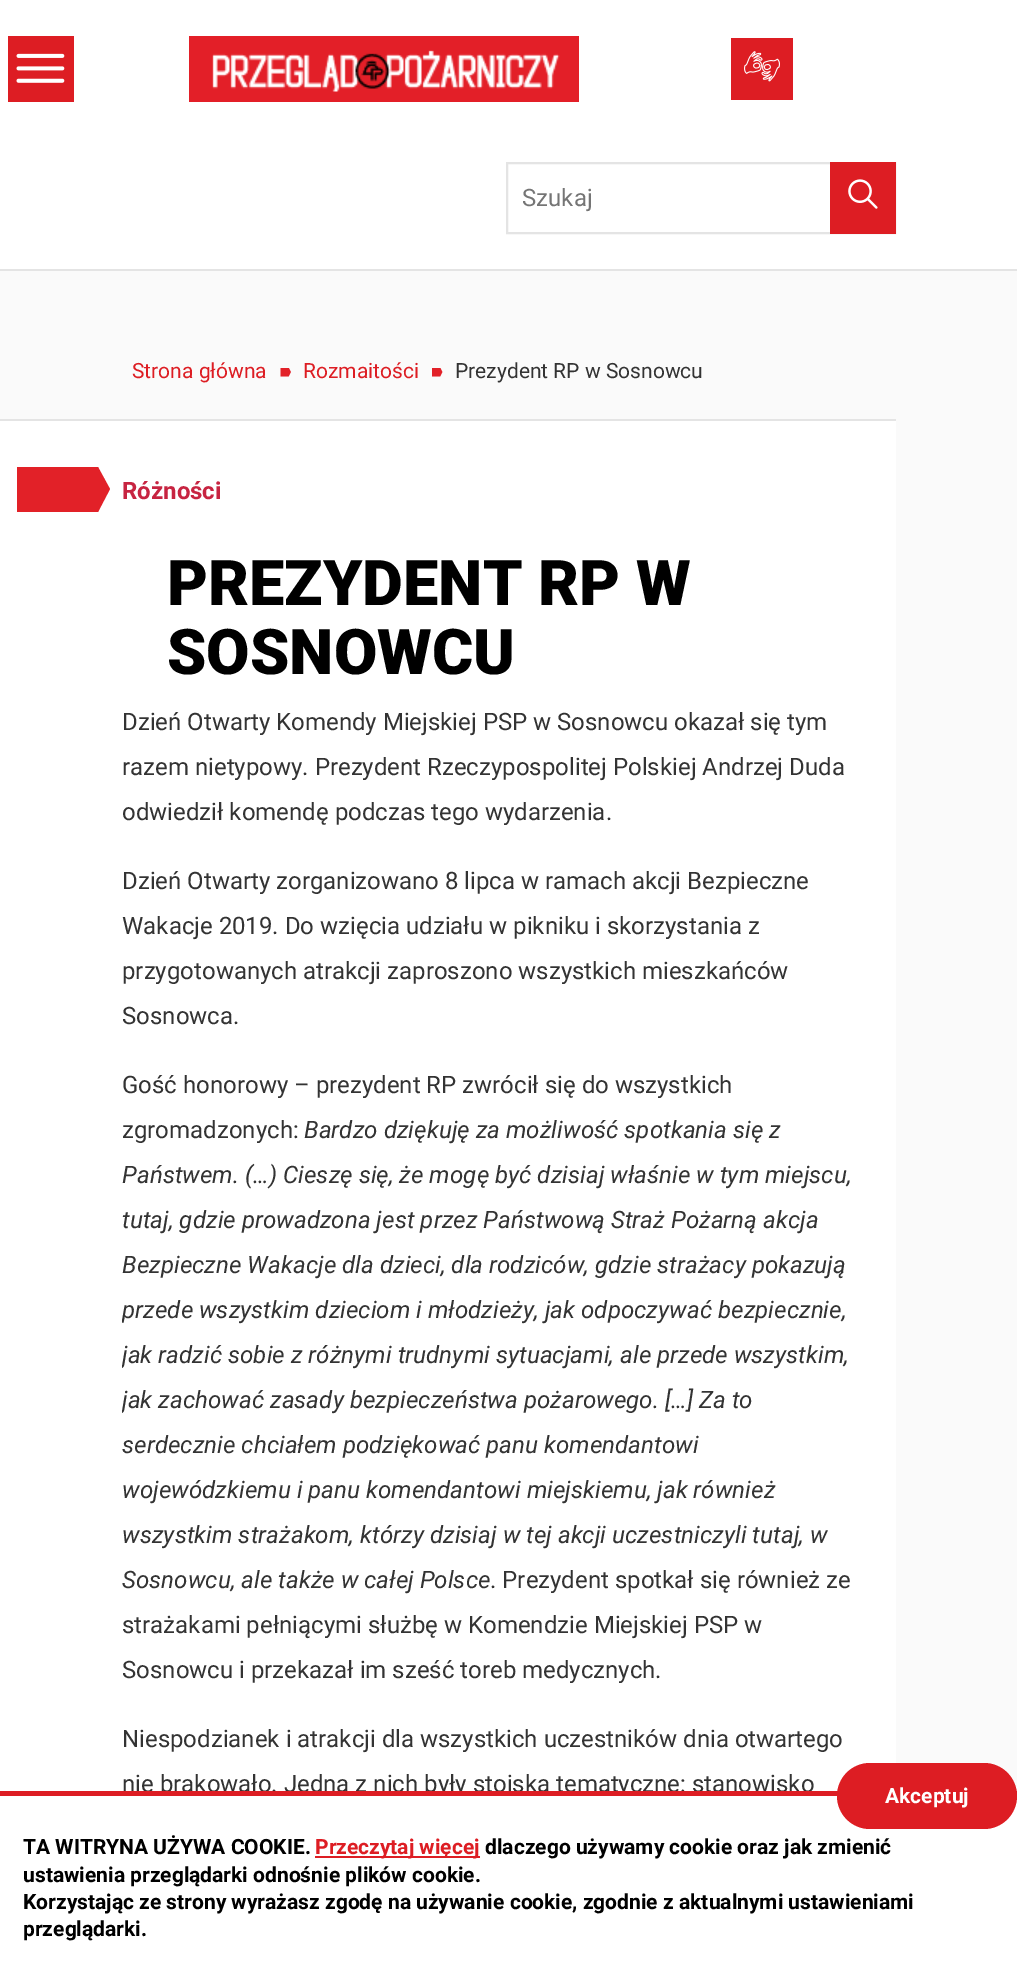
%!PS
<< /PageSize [1017 1979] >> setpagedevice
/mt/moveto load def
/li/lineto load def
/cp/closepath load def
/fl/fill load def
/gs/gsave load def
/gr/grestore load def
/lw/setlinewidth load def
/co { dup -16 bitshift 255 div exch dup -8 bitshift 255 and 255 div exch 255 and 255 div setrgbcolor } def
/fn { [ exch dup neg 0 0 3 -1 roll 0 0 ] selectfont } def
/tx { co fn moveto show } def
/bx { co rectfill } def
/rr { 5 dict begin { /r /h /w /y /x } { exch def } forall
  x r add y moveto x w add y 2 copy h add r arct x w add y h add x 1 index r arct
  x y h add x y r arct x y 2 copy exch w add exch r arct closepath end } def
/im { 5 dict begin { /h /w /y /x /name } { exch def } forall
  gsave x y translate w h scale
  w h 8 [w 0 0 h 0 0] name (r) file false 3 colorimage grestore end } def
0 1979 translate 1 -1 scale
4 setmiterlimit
0 0 1017 1979 16#FAFAFA bx
0 0 1017 269 16#FFFFFF bx
0 269 1017 2 16#E4E4E4 bx
(media/1.raw) 189 36 390 66 im
731 38 62 62 16#DD1D23 bx
(media/2.raw) 744 51 36 31 im
8 36 66 66 16#DD1D23 bx
(media/3.raw) 16 53 49 30 im
16#E4E4E4 co
2 lw
507 163 388 70 rectstroke
830 162 66 72 16#DD1D23 bx
(media/4.raw) 848 179 30 30 im
(media/5.raw) 280 368 11 9 im
(media/6.raw) 432 368 11 9 im
122 421 774 1370 16#FFFFFF bx
0 419 896 2 16#E4E4E4 bx
(Szukaj) 522 206 /Roboto-Regular 24 16#757575 tx
(Strona główna) 132 378 /Roboto-Regular 21 16#DD1D23 tx
(Rozmaitości) 303 378 /Roboto-Regular 21 16#DD1D23 tx
(Prezydent RP w Sosnowcu) 455 378 /Roboto-Regular 21 16#333333 tx
(Różności) 122 499 /Roboto-Bold 24 16#C72441 tx
(PREZYDENT RP W) 167 605 /Roboto-Black 63 16#000000 tx
(SOSNOWCU) 167 674 /Roboto-Black 63 16#000000 tx
(Dzień Otwarty Komendy Miejskiej PSP w Sosnowcu okazał się tym) 122 730 /Roboto-Regular 24 16#333333 tx
(razem nietypowy. Prezydent Rzeczypospolitej Polskiej Andrzej Duda) 122 775 /Roboto-Regular 24 16#333333 tx
(odwiedził komendę podczas tego wydarzenia.) 122 820 /Roboto-Regular 24 16#333333 tx
(Dzień Otwarty zorganizowano 8 lipca w ramach akcji Bezpieczne) 122 889 /Roboto-Regular 24 16#333333 tx
(Wakacje 2019. Do wzięcia udziału w pikniku i skorzystania z) 122 934 /Roboto-Regular 24 16#333333 tx
(przygotowanych atrakcji zaproszono wszystkich mieszkańców) 122 979 /Roboto-Regular 24 16#333333 tx
(Sosnowca.) 122 1024 /Roboto-Regular 24 16#333333 tx
(Gość honorowy – prezydent RP zwrócił się do wszystkich) 122 1093 /Roboto-Regular 24 16#333333 tx
(zgromadzonych:) 122 1138 /Roboto-Regular 24 16#333333 tx
(Bardzo dziękuję za możliwość spotkania się z) 304 1138 /Roboto-Italic 24 16#333333 tx
(Państwem. \(…\) Cieszę się, że mogę być dzisiaj właśnie w tym miejscu,) 122 1183 /Roboto-Italic 24 16#333333 tx
(tutaj, gdzie prowadzona jest przez Państwową Straż Pożarną akcja) 122 1228 /Roboto-Italic 24 16#333333 tx
(Bezpieczne Wakacje dla dzieci, dla rodziców, gdzie strażacy pokazują) 122 1273 /Roboto-Italic 24 16#333333 tx
(przede wszystkim dzieciom i młodzieży, jak odpoczywać bezpiecznie,) 122 1318 /Roboto-Italic 24 16#333333 tx
(jak radzić sobie z różnymi trudnymi sytuacjami, ale przede wszystkim,) 122 1363 /Roboto-Italic 24 16#333333 tx
(jak zachować zasady bezpieczeństwa pożarowego. […] Za to) 122 1408 /Roboto-Italic 24 16#333333 tx
0 421 122 1370 16#FFFFFF bx
gs
17 467 93 45 rectclip
16#E22128 co
17 512 mt 17 466 li 98 467 li 110 489 li 98 512 li cp fl
gr
(serdecznie chciałem podziękować panu komendantowi) 122 1453 /Roboto-Italic 24 16#333333 tx
(wojewódzkiemu i panu komendantowi miejskiemu, jak również) 122 1498 /Roboto-Italic 24 16#333333 tx
(wszystkim strażakom, którzy dzisiaj w tej akcji uczestniczyli tutaj, w) 122 1543 /Roboto-Italic 24 16#333333 tx
(Sosnowcu, ale także w całej Polsce) 122 1588 /Roboto-Italic 24 16#333333 tx
(. Prezydent spotkał się również ze) 490 1588 /Roboto-Regular 24 16#333333 tx
(strażakami pełniącymi służbę w Komendzie Miejskiej PSP w) 122 1633 /Roboto-Regular 24 16#333333 tx
(Sosnowcu i przekazał im sześć toreb medycznych.) 122 1678 /Roboto-Regular 24 16#333333 tx
(Niespodzianek i atrakcji dla wszystkich uczestników dnia otwartego) 122 1747 /Roboto-Regular 24 16#333333 tx
(nie brakowało. Jedną z nich były stoiska tematyczne: stanowisko) 122 1792 /Roboto-Regular 24 16#333333 tx
0 1796 1017 183 16#FFFFFF bx
0 1791 1017 5 16#DD1D23 bx
837 1763 180 66 33 rr fl
(Akceptuj) 885 1803 /Roboto-Bold 21 16#FFFFFF tx
(TA WITRYNA UŻYWA COOKIE.) 23 1854 /Roboto-Bold 21 16#000000 tx
315 1856 165 2 16#DD1D23 bx
(Przeczytaj więcej) 315 1854 /Roboto-Bold 21 16#DD1D23 tx
(dlaczego używamy cookie oraz jak zmienić) 485 1854 /Roboto-Bold 21 16#000000 tx
(ustawienia przeglądarki odnośnie plików cookie.) 23 1882 /Roboto-Bold 21 16#000000 tx
(Korzystając ze strony wyrażasz zgodę na używanie cookie, zgodnie z aktualnymi ustawieniami) 23 1909 /Roboto-Bold 21 16#000000 tx
(przeglądarki.) 23 1936 /Roboto-Bold 21 16#000000 tx
showpage
